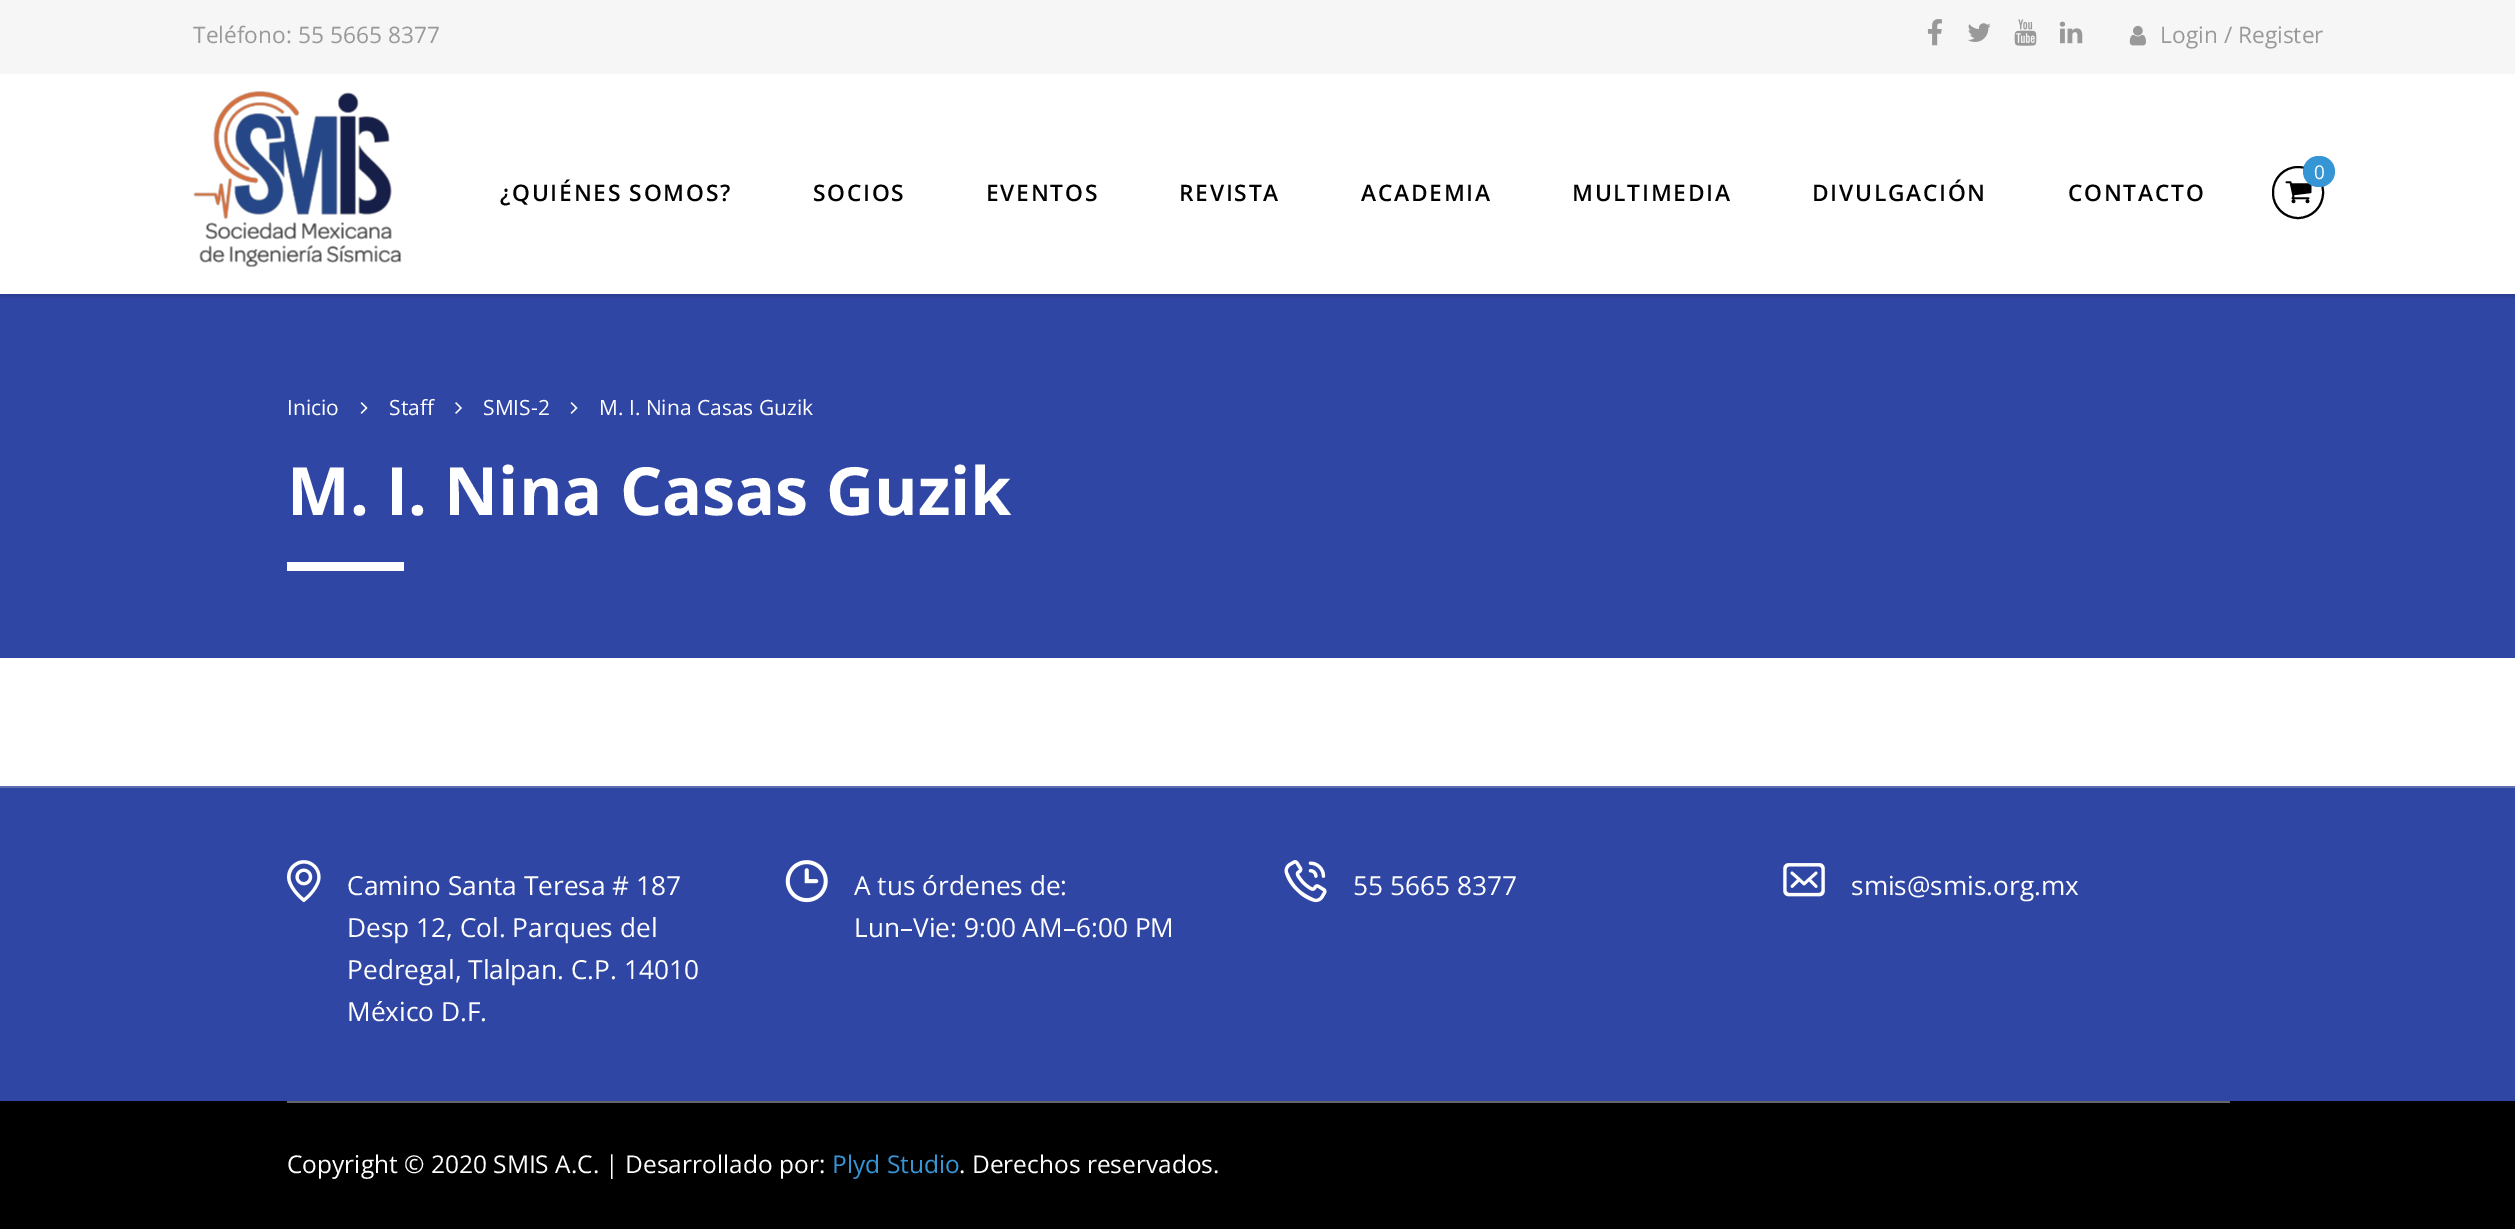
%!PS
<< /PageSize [2515 1229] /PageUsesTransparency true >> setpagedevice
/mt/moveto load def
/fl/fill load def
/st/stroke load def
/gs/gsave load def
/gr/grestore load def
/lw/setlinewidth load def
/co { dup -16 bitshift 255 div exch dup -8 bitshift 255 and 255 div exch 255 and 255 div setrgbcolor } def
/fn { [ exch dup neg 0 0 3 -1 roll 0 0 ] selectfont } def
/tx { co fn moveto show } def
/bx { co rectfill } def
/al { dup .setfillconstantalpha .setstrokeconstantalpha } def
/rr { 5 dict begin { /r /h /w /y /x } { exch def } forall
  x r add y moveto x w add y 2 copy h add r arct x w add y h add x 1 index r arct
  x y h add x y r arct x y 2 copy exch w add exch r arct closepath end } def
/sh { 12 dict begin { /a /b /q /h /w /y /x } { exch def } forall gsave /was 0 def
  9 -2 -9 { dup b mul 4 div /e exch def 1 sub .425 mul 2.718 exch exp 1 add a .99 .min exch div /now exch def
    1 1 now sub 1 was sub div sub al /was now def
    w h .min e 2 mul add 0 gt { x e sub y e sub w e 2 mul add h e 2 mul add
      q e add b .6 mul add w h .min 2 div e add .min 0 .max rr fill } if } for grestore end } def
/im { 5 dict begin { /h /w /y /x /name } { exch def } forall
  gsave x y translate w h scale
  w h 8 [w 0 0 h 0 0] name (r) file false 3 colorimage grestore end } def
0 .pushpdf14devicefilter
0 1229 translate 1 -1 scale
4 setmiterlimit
0 0 2515 1229 16#FFFFFF bx
0 294 2515 364 16#3046A4 bx
gs
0 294 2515 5 rectclip
16#000000 co
0 -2 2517 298 0 2.5 .15 sh
gr
0 0 2515 74 16#F6F6F6 bx
(media/1.raw) 1927 19 15 27 im
(media/2.raw) 1968 23 23 19 im
(media/3.raw) 2014 19 23 27 im
(media/4.raw) 2059 21 24 23 im
(media/5.raw) 2129 25 17 21 im
(media/6.raw) 193 91 209 176 im
16#010101 co
2 lw
2273 167 50 51 25 rr st
(media/7.raw) 2285 181 27 23 im
16#3595D5 co
2303 156 32 31 15.5 rr fl
(media/8.raw) 360 402 8 12 im
(media/9.raw) 455 402 7 12 im
(media/8.raw) 570 402 8 12 im
287 562 117 9 16#FFFFFF bx
0 788 2515 313 16#3046A4 bx
0 786 2515 2 16#606FB0 bx
(media/10.raw) 287 860 34 43 im
(media/11.raw) 785 860 43 43 im
(media/12.raw) 1284 860 43 43 im
(media/13.raw) 1783 863 42 34 im
0 1101 2515 128 16#000000 bx
287 1101 1943 2 16#666666 bx
(Teléfono: 55 5665 8377) 193 43 /OpenSans-Regular 22.75 16#999999 tx
(Login / Register) 2160 43 /OpenSans-Regular 22.75 16#999999 tx
(0) 2314 179 /OpenSans-Regular 19 16#FFFFFF tx
/OpenSans-SemiBold 22.75 fn
16#000000 co
500 201 mt 1.75 0 (¿QUIÉNES SOMOS?) ashow
813 201 mt 1.75 0 (SOCIOS) ashow
986 201 mt 1.75 0 (EVENTOS) ashow
1179 201 mt 1.75 0 (REVISTA) ashow
1361 201 mt 1.75 0 (ACADEMIA) ashow
1572 201 mt 1.75 0 (MULTIMEDIA) ashow
1812 201 mt 1.75 0 (DIVULGACIÓN) ashow
2068 201 mt 1.75 0 (CONTACTO) ashow
(Inicio) 287 415 /OpenSans-Regular 21 16#FFFFFF tx
(Staff) 389 415 /OpenSans-Regular 21 16#FFFFFF tx
(SMIS-2) 483 415 /OpenSans-Regular 21 16#FFFFFF tx
(M. I. Nina Casas Guzik) 599 415 /OpenSans-Regular 21 16#FFFFFF tx
(M. I. Nina Casas Guzik) 287 515 /OpenSans-Bold 66.5 16#FFFFFF tx
(Camino Santa Teresa # 187) 347 895 /OpenSans-Regular 26.25 16#FFFFFF tx
(Desp 12, Col. Parques del) 347 937 /OpenSans-Regular 26.25 16#FFFFFF tx
(Pedregal, Tlalpan. C.P. 14010) 347 979 /OpenSans-Regular 26.25 16#FFFFFF tx
(México D.F.) 347 1021 /OpenSans-Regular 26.25 16#FFFFFF tx
(A tus órdenes de:) 854 895 /OpenSans-Regular 26.25 16#FFFFFF tx
(Lun–Vie: 9:00 AM–6:00 PM) 854 937 /OpenSans-Regular 26.25 16#FFFFFF tx
(55 5665 8377) 1353 895 /OpenSans-Regular 26.25 16#FFFFFF tx
(smis@smis.org.mx) 1851 895 /OpenSans-Regular 26.25 16#FFFFFF tx
(Copyright © 2020 SMIS A.C. | Desarrollado por:) 287 1173 /OpenSans-Regular 24.5 16#FFFFFF tx
(Plyd Studio) 832 1173 /OpenSans-Regular 24.5 16#3595D5 tx
(. Derechos reservados.) 959 1173 /OpenSans-Regular 24.5 16#FFFFFF tx
.poppdf14devicefilter showpage
